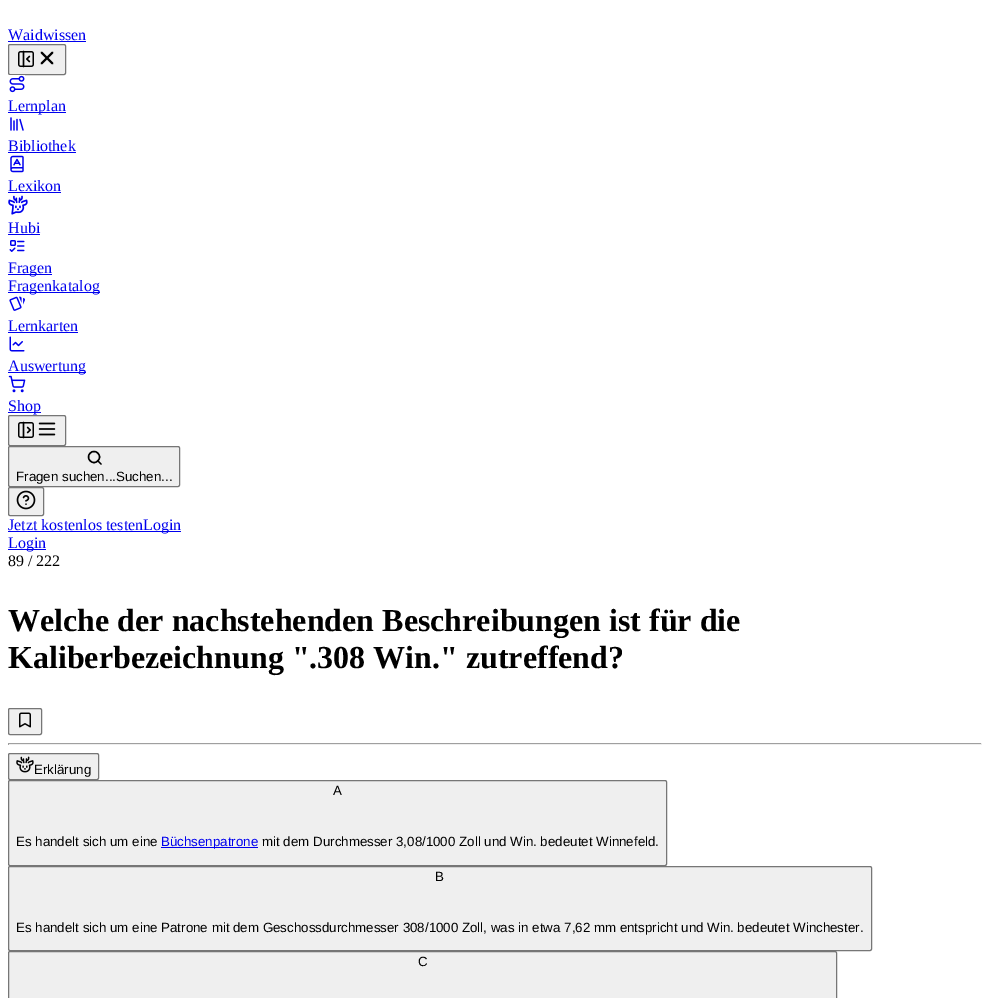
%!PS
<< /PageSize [990 998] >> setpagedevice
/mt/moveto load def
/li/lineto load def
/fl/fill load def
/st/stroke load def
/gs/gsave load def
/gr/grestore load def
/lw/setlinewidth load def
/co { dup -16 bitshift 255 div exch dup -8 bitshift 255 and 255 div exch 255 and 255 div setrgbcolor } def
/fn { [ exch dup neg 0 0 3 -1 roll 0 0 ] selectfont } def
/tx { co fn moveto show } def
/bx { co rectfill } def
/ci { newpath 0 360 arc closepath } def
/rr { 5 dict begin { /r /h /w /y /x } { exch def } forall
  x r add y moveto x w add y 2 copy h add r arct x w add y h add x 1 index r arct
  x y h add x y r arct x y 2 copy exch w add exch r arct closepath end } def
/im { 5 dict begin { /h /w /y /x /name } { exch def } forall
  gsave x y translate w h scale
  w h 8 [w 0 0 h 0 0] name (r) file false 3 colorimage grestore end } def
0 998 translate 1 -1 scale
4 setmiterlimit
0 0 990 998 16#FFFFFF bx
8 41 78 1 16#0000EE bx
16#EFEFEF co
8.5 44.5 57 30 1.5 rr gs fl gr
16#767676 co
st
(media/1.raw) 18 50 16 18 im
16#000000 co
1.8 lw
1 setlinecap
1 setlinejoin
52.5 52.5 mt 41.5 63.5 li 41.5 52.5 mt 52.5 63.5 li st
(media/2.raw) 9 75 16 18 im
8 112 58 1 16#0000EE bx
(media/3.raw) 10 117 14 14 im
8 152 68 1 16#0000EE bx
(media/4.raw) 10 155 14 18 im
8 192 53 1 16#0000EE bx
(media/5.raw) 8 195 20 20 im
8 234 32 1 16#0000EE bx
(media/6.raw) 9 240 16 12 im
8 274 44 1 16#0000EE bx
8 292 92 1 16#0000EE bx
(media/7.raw) 9 296 16 15 im
8 332 70 1 16#0000EE bx
(media/8.raw) 9 336 16 16 im
8 372 78 1 16#0000EE bx
(media/9.raw) 8 375 18 18 im
8 412 33 1 16#0000EE bx
16#EFEFEF co
8.5 415.5 57 30 1.5 rr gs fl gr
16#767676 co
1 lw
0 setlinecap
0 setlinejoin
st
(media/10.raw) 18 421 16 18 im
(media/11.raw) 38 422 18 14 im
16#EFEFEF co
8.5 446.5 171 40 1.5 rr gs fl gr
16#767676 co
st
16#000000 co
1.4 lw
1 setlinecap
1 setlinejoin
101 464 mt 98 461 li st
0 setlinecap
0 setlinejoin
94 457 5.5 ci st
16#EFEFEF co
8.5 487.5 35 28 1.5 rr gs fl gr
16#767676 co
1 lw
st
(media/12.raw) 16 490 20 20 im
8 531 173 1 16#0000EE bx
8 549 38 1 16#0000EE bx
16#EFEFEF co
8.5 708.5 33 26 1.5 rr gs fl gr
16#767676 co
st
(media/13.raw) 19 712 12 16 im
8 743 974 1 16#9F9F9F bx
981 743 1 2 16#EEEEEE bx
8 744 974 1 16#EEEEEE bx
8 743 1 2 16#9F9F9F bx
16#EFEFEF co
8.5 753.5 90 26 1.5 rr gs fl gr
16#767676 co
st
(media/14.raw) 16 756 18 17 im
16#EFEFEF co
8.5 780.5 658 85 1.5 rr gs fl gr
16#767676 co
st
161 847 97 1 16#0000EE bx
16#EFEFEF co
8.5 866.5 863 84 1.5 rr gs fl gr
16#767676 co
st
16#EFEFEF co
8.5 951.5 828 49 1.5 rr gs fl gr
16#767676 co
st
(Waidwissen) 8 40 /LiberationSerif-Regular 16 16#0000EE tx
(Lernplan) 8 111 /LiberationSerif-Regular 16 16#0000EE tx
(Bibliothek) 8 151 /LiberationSerif-Regular 16 16#0000EE tx
(Lexikon) 8 191 /LiberationSerif-Regular 16 16#0000EE tx
(Hubi) 8 233 /LiberationSerif-Regular 16 16#0000EE tx
(Fragen) 8 273 /LiberationSerif-Regular 16 16#0000EE tx
(Fragenkatalog) 8 291 /LiberationSerif-Regular 16 16#0000EE tx
(Lernkarten) 8 331 /LiberationSerif-Regular 16 16#0000EE tx
(Auswertung) 8 371 /LiberationSerif-Regular 16 16#0000EE tx
(Shop) 8 411 /LiberationSerif-Regular 16 16#0000EE tx
(Fragen suchen...Suchen...) 16 481 /LiberationSans-Regular 13.33 16#000000 tx
(Jetzt kostenlos testenLogin) 8 530 /LiberationSerif-Regular 16 16#0000EE tx
(Login) 8 548 /LiberationSerif-Regular 16 16#0000EE tx
(89 / 222) 8 566 /LiberationSerif-Regular 16 16#000000 tx
(Welche der nachstehenden Beschreibungen ist für die) 8 631 /LiberationSerif-Bold 32 16#000000 tx
(Kaliberbezeichnung ".308 Win." zutreffend?) 8 668 /LiberationSerif-Bold 32 16#000000 tx
(Erklärung) 34 774 /LiberationSans-Regular 13.33 16#000000 tx
(A) 333 795 /LiberationSans-Regular 13.33 16#000000 tx
(Es handelt sich um eine) 16 846 /LiberationSans-Regular 13.33 16#000000 tx
(Büchsenpatrone) 161 846 /LiberationSans-Regular 13.33 16#0000EE tx
(mit dem Durchmesser 3,08/1000 Zoll und Win. bedeutet Winnefeld.) 262 846 /LiberationSans-Regular 13.33 16#000000 tx
(B) 435 881 /LiberationSans-Regular 13.33 16#000000 tx
(Es handelt sich um eine Patrone mit dem Geschossdurchmesser 308/1000 Zoll, was in etwa 7,62 mm entspricht und Win. bedeutet Winchester.) 16 932 /LiberationSans-Regular 13.33 16#000000 tx
(C) 418 966 /LiberationSans-Regular 13.33 16#000000 tx
showpage
